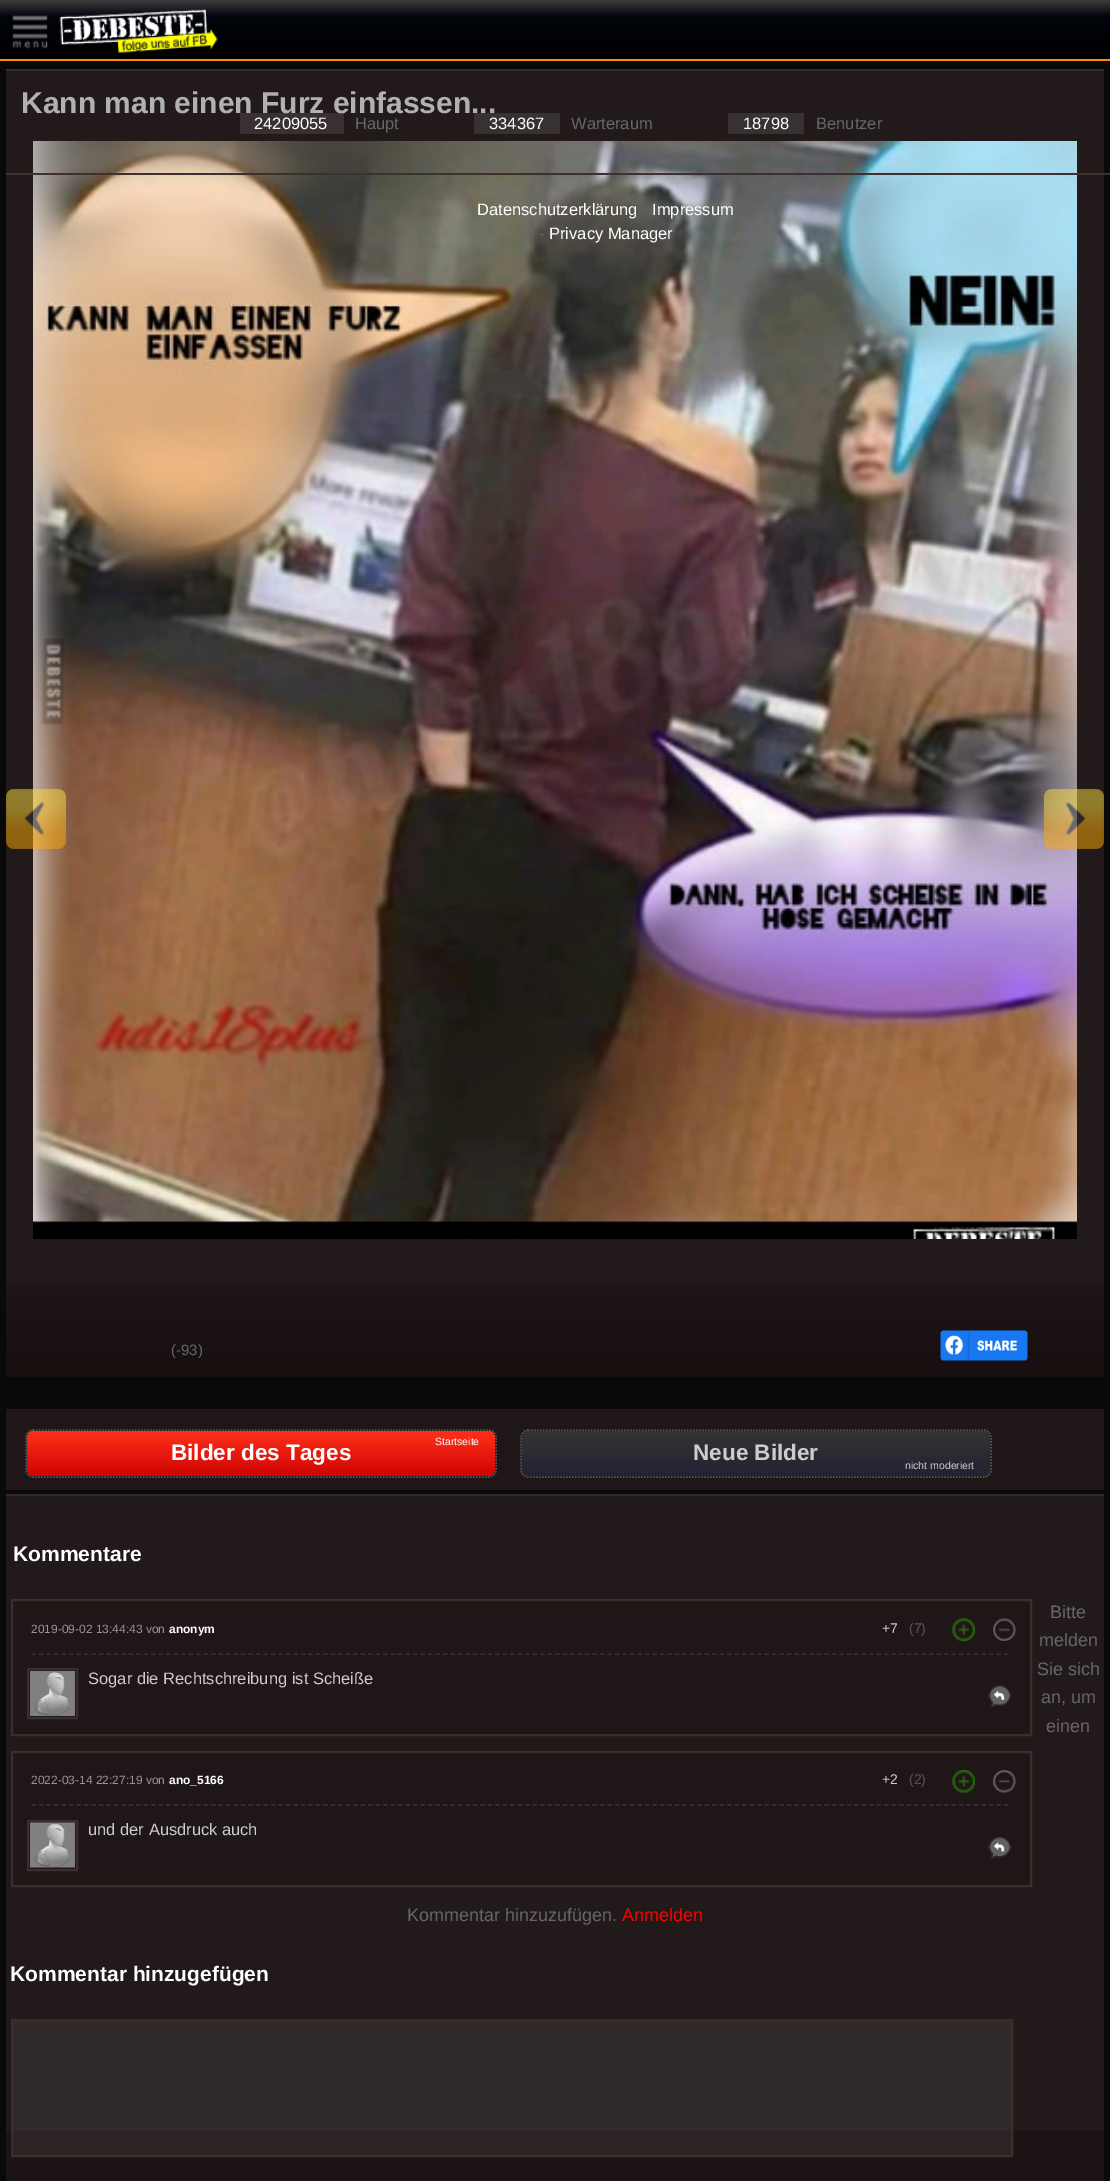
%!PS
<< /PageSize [1110 2181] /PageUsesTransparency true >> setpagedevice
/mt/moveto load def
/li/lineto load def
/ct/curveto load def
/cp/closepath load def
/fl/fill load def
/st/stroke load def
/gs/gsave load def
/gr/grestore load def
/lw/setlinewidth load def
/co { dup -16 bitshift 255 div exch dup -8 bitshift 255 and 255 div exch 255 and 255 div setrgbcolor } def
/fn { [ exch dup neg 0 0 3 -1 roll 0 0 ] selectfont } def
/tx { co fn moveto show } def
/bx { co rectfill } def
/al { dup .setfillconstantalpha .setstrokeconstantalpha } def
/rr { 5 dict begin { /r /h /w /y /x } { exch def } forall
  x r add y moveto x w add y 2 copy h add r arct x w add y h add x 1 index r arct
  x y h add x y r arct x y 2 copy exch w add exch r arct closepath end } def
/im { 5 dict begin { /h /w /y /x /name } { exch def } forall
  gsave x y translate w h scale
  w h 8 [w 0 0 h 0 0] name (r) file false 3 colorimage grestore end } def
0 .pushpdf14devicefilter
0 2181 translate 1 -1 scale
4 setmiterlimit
0 0 1110 2181 16#090909 bx
gs 0 0 mt 1110 0 li 1110 59 li 0 59 li cp clip newpath
<< /ShadingType 2 /ColorSpace /DeviceRGB /Coords [555 0 555 59] /Extend [true true] /Function << /FunctionType 3 /Domain [0 1] /Functions [<< /FunctionType 2 /Domain [0 1] /C0 [.239 .239 .239] /C1 [.008 .016 .047] /N 1 >> << /FunctionType 2 /Domain [0 1] /C0 [.008 .016 .047] /C1 [0 0 0] /N 1 >>] /Bounds [.28] /Encode [0 1 0 1] >> >> shfill gr
0 59 1110 2 16#FF8C00 bx
(media/1.raw) 12 15 36 34 im
(media/2.raw) 59 9 159 44 im
6 71 1098 1214 16#221A1A bx
(media/3.raw) 6 1285 1098 92 im
6 69 1098 2 16#352929 bx
(media/4.raw) 33 141 1044 1098 im
(media/5.raw) 6 789 60 60 im
(media/6.raw) 1044 789 60 60 im
(media/7.raw) 940 1330 88 31 im
0.1 al
240 113 104 21 16#FFFFFF bx
1 al
728 113 76 21 16#383131 bx
6 173 1104 2 16#3E3030 bx
6 1409 1098 81 16#1F1617 bx
16#555555 co
1.5 lw
[1.5 1.5] 0 setdash
33 1430 mt 489 1430 li 492.5 1430 496 1433.5 496 1437 ct 496 1470 li 496 1473.5 492.5 1477 489 1477 ct 33 1477 li 29.5 1477 26 1473.5 26 1470 ct 26 1437 li 26 1433.5 29.5 1430 33 1430 ct cp st
gs 27 1431 468 45 8 rr clip newpath
<< /ShadingType 2 /ColorSpace /DeviceRGB /Coords [261 1431 261 1476] /Extend [true true] /Function << /FunctionType 2 /Domain [0 1] /C0 [1 .188 .098] /C1 [.812 .016 .016] /N 1 >> >> shfill gr
528 1430 mt 984 1430 li 987.5 1430 991 1433.5 991 1437 ct 991 1470 li 991 1473.5 987.5 1477 984 1477 ct 528 1477 li 524.5 1477 521 1473.5 521 1470 ct 521 1437 li 521 1433.5 524.5 1430 528 1430 ct cp st
gs 522 1431 468 45 8 rr clip newpath
<< /ShadingType 2 /ColorSpace /DeviceRGB /Coords [756 1431 756 1476] /Extend [true true] /Function << /FunctionType 3 /Domain [0 1] /Functions [<< /FunctionType 2 /Domain [0 1] /C0 [.2 .2 .2] /C1 [.2 .2 .2] /N 1 >> << /FunctionType 2 /Domain [0 1] /C0 [.2 .2 .2] /C1 [.133 .133 .2] /N 1 >>] /Bounds [.05] /Encode [0 1 0 1] >> >> shfill gr
6 1496 1098 635 16#221A1A bx
13 2021 998 110 16#312A2A bx
6 2131 1098 50 16#1C1414 bx
13 2131 998 24 16#2C2424 bx
6 1494 1098 2 16#352929 bx
16#1F1617 co
12 1600 mt 1031 1600 li 1031 1735 li 12 1735 li cp gs fl gr
16#3A2E2F co
2 lw
[] 0 setdash
st
1.5 lw
[4.5 2.98] 0 setdash
31.5 1654 mt 1009.5 1654 li st
(media/8.raw) 952 1618 23 23 im
(media/9.raw) 993 1618 23 23 im
2 lw
[] 0 setdash
28 1669 49 49 rectstroke
(media/10.raw) 30 1671 45 45 im
(media/11.raw) 988 1685 23 22 im
16#1F1617 co
12 1752 mt 1031 1752 li 1031 1886 li 12 1886 li cp gs fl gr
16#3A2E2F co
st
1.5 lw
[4.5 2.98] 0 setdash
31.5 1805 mt 1009.5 1805 li st
(media/12.raw) 952 1770 23 23 im
(media/13.raw) 993 1770 23 23 im
2 lw
[] 0 setdash
28 1821 49 49 rectstroke
(media/14.raw) 30 1822 45 46 im
(media/15.raw) 988 1837 23 22 im
12 2020 1000 136 rectstroke
(Kann man einen Furz einfassen...) 21 113 /LiberationSans-Bold 30 16#B1B1B1 tx
(\(-93\)) 171 1355 /LiberationSans-Regular 15 16#666666 tx
(24209055) 254 129 /LiberationSans-Regular 16.5 16#FFFFFF tx
(Haupt) 355 129 /LiberationSans-Regular 16.5 16#666666 tx
474 113 86 21 16#383131 bx
(334367) 489 129 /LiberationSans-Regular 16.5 16#FFFFFF tx
(Warteraum) 571 129 /LiberationSans-Regular 16.5 16#666666 tx
(18798) 743 129 /LiberationSans-Regular 16.5 16#FFFFFF tx
(Benutzer) 816 129 /LiberationSans-Regular 16.5 16#666666 tx
(Datenschutzerklärung) 477 215 /LiberationSans-Regular 16.5 16#FFFFFF tx
(Impressum) 652 215 /LiberationSans-Regular 16.5 16#FFFFFF tx
(-) 539 239 /LiberationSans-Regular 16.5 16#666666 tx
(Privacy Manager) 549 239 /LiberationSans-Regular 16.5 16#FFFFFF tx
(Startseite) 435 1445 /LiberationSans-Regular 10.5 16#FFFFFF tx
(Bilder des Tages) 171 1460 /LiberationSans-Bold 22.5 16#FFFFFF tx
(Neue Bilder) 693 1460 /LiberationSans-Bold 22.5 16#CCCCCC tx
(nicht moderiert) 905 1469 /LiberationSans-Regular 10.5 16#CCCCCC tx
(Kommentare) 13 1561 /LiberationSans-Bold 21 16#FFFFFF tx
(Bitte) 1050 1618 /LiberationSans-Regular 18 16#666666 tx
(melden) 1039 1646 /LiberationSans-Regular 18 16#666666 tx
(Sie sich) 1037 1675 /LiberationSans-Regular 18 16#666666 tx
(an, um) 1041 1703 /LiberationSans-Regular 18 16#666666 tx
(einen) 1046 1732 /LiberationSans-Regular 18 16#666666 tx
(Kommentar hinzuzufügen.) 407 1921 /LiberationSans-Regular 18 16#666666 tx
(Anmelden) 622 1921 /LiberationSans-Regular 18 16#FF0000 tx
(2019-09-02 13:44:43 von) 31 1633 /LiberationSans-Regular 12 16#959595 tx
(anonym) 169 1633 /LiberationSans-Bold 12 16#FFFFFF tx
(+7) 882 1633 /LiberationSans-Regular 14 16#CCCCCC tx
(\(7\)) 909 1633 /LiberationSans-Regular 14 16#555555 tx
(Sogar die Rechtschreibung ist Scheiße) 88 1684 /LiberationSans-Regular 16.5 16#CCCCCC tx
(2022-03-14 22:27:19 von) 31 1784 /LiberationSans-Regular 12 16#959595 tx
(ano_5166) 169 1784 /LiberationSans-Bold 12 16#FFFFFF tx
(+2) 882 1784 /LiberationSans-Regular 14 16#CCCCCC tx
(\(2\)) 909 1784 /LiberationSans-Regular 14 16#555555 tx
(und der Ausdruck auch) 88 1835 /LiberationSans-Regular 16.5 16#CCCCCC tx
(Kommentar hinzugefügen) 10 1981 /LiberationSans-Bold 21 16#FFFFFF tx
.poppdf14devicefilter showpage
